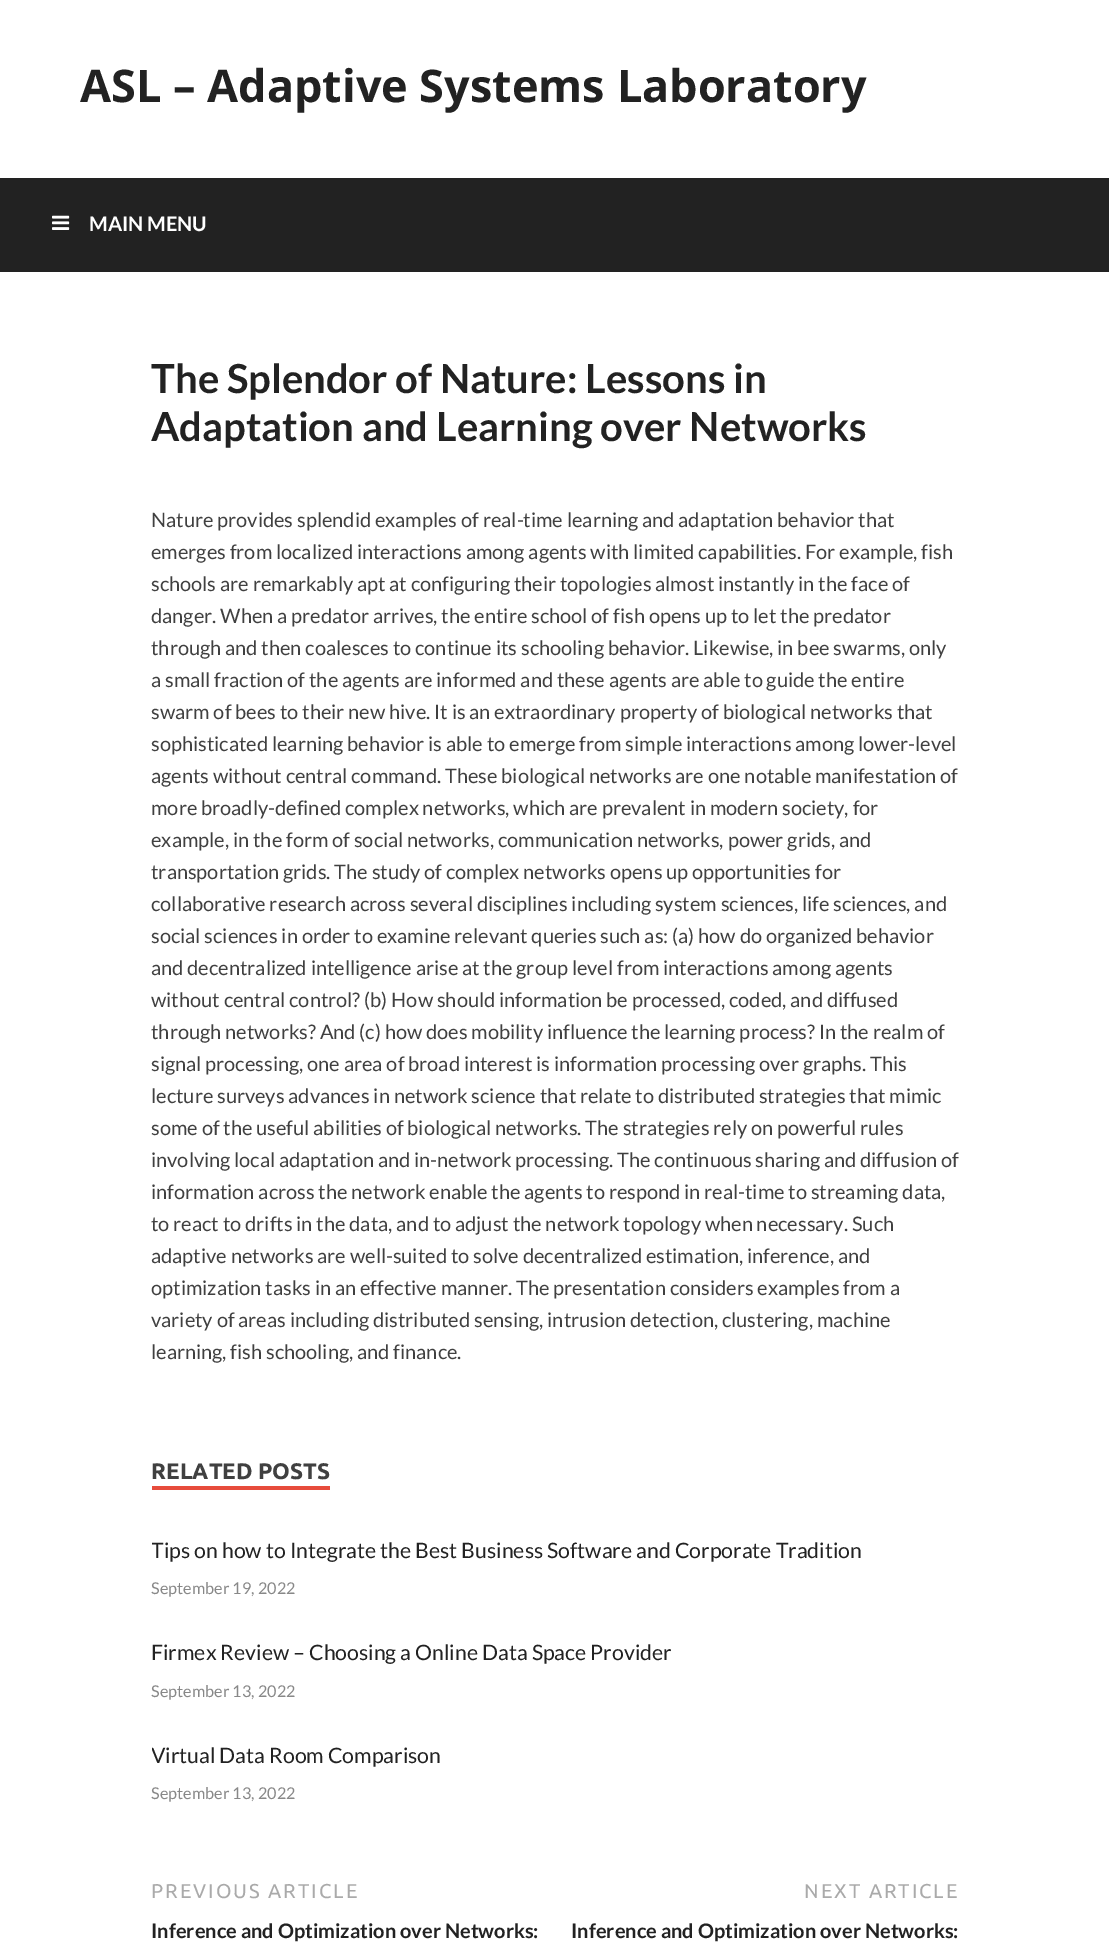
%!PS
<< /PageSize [1109 1946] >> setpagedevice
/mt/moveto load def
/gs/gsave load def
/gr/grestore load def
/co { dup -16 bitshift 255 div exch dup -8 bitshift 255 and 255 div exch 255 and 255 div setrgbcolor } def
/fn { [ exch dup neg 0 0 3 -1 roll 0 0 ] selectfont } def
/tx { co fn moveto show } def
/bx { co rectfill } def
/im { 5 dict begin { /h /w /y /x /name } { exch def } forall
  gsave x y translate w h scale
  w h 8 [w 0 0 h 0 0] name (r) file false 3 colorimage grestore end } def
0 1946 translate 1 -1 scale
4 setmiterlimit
0 0 1109 1946 16#FFFFFF bx
0 178 1109 94 16#222222 bx
(media/1.raw) 52 215 18 15 im
152 1486 178 4 16#E74C3C bx
(ASL – Adaptive Systems Laboratory) 80 102 /OpenSans-Bold 45 16#222222 tx
(MAIN MENU) 89 231 /Lato-Bold 20 16#FFFFFF tx
(The Splendor of Nature: Lessons in) 151 393 /Lato-Bold 40 16#222222 tx
(Adaptation and Learning over Networks) 151 441 /Lato-Bold 40 16#222222 tx
(Nature provides splendid examples of real-time learning and adaptation behavior that) 151 527 /Lato-Regular 20 16#404040 tx
(emerges from localized interactions among agents with limited capabilities. For example, fish) 151 559 /Lato-Regular 20 16#404040 tx
(schools are remarkably apt at configuring their topologies almost instantly in the face of) 151 591 /Lato-Regular 20 16#404040 tx
(danger. When a predator arrives, the entire school of fish opens up to let the predator) 151 623 /Lato-Regular 20 16#404040 tx
(through and then coalesces to continue its schooling behavior. Likewise, in bee swarms, only) 151 655 /Lato-Regular 20 16#404040 tx
(a small fraction of the agents are informed and these agents are able to guide the entire) 151 687 /Lato-Regular 20 16#404040 tx
(swarm of bees to their new hive. It is an extraordinary property of biological networks that) 151 719 /Lato-Regular 20 16#404040 tx
(sophisticated learning behavior is able to emerge from simple interactions among lower-level) 151 751 /Lato-Regular 20 16#404040 tx
(agents without central command. These biological networks are one notable manifestation of) 151 783 /Lato-Regular 20 16#404040 tx
(more broadly-defined complex networks, which are prevalent in modern society, for) 151 815 /Lato-Regular 20 16#404040 tx
(example, in the form of social networks, communication networks, power grids, and) 151 847 /Lato-Regular 20 16#404040 tx
(transportation grids. The study of complex networks opens up opportunities for) 151 879 /Lato-Regular 20 16#404040 tx
(collaborative research across several disciplines including system sciences, life sciences, and) 151 911 /Lato-Regular 20 16#404040 tx
(social sciences in order to examine relevant queries such as: \(a\) how do organized behavior) 151 943 /Lato-Regular 20 16#404040 tx
(and decentralized intelligence arise at the group level from interactions among agents) 151 975 /Lato-Regular 20 16#404040 tx
(without central control? \(b\) How should information be processed, coded, and diffused) 151 1007 /Lato-Regular 20 16#404040 tx
(through networks? And \(c\) how does mobility influence the learning process? In the realm of) 151 1039 /Lato-Regular 20 16#404040 tx
(signal processing, one area of broad interest is information processing over graphs. This) 151 1071 /Lato-Regular 20 16#404040 tx
(lecture surveys advances in network science that relate to distributed strategies that mimic) 151 1103 /Lato-Regular 20 16#404040 tx
(some of the useful abilities of biological networks. The strategies rely on powerful rules) 151 1135 /Lato-Regular 20 16#404040 tx
(involving local adaptation and in-network processing. The continuous sharing and diffusion of) 151 1167 /Lato-Regular 20 16#404040 tx
(information across the network enable the agents to respond in real-time to streaming data,) 151 1199 /Lato-Regular 20 16#404040 tx
(to react to drifts in the data, and to adjust the network topology when necessary. Such) 151 1231 /Lato-Regular 20 16#404040 tx
(adaptive networks are well-suited to solve decentralized estimation, inference, and) 151 1263 /Lato-Regular 20 16#404040 tx
(optimization tasks in an effective manner. The presentation considers examples from a) 151 1295 /Lato-Regular 20 16#404040 tx
(variety of areas including distributed sensing, intrusion detection, clustering, machine) 151 1327 /Lato-Regular 20 16#404040 tx
(learning, fish schooling, and finance.) 151 1359 /Lato-Regular 20 16#404040 tx
(RELATED POSTS) 151 1479 /Ubuntu-Bold 22.5 16#404040 tx
gs
152 1456 808 390 rectclip
(Tips on how to Integrate the Best Business Software and Corporate Tradition) 151 1558 /Lato-Regular 21.25 16#222222 tx
gr
(September 19, 2022) 151 1594 /Lato-Regular 16.25 16#888888 tx
(Firmex Review – Choosing a Online Data Space Provider) 151 1660 /Lato-Regular 21.25 16#222222 tx
(September 13, 2022) 151 1697 /Lato-Regular 16.25 16#888888 tx
gs
152 1456 808 390 rectclip
(Virtual Data Room Comparison) 151 1763 /Lato-Regular 21.25 16#222222 tx
gr
(September 13, 2022) 151 1799 /Lato-Regular 16.25 16#888888 tx
/Ubuntu-Regular 20 fn
16#AAAAAA co
151 1898 mt 2 0 (PREVIOUS ARTICLE) ashow
(Inference and Optimization over Networks:) 151 1938 /Lato-Bold 20 16#222222 tx
/Ubuntu-Regular 20 fn
16#AAAAAA co
804 1898 mt 2 0 (NEXT ARTICLE) ashow
(Inference and Optimization over Networks:) 571 1938 /Lato-Bold 20 16#222222 tx
showpage
